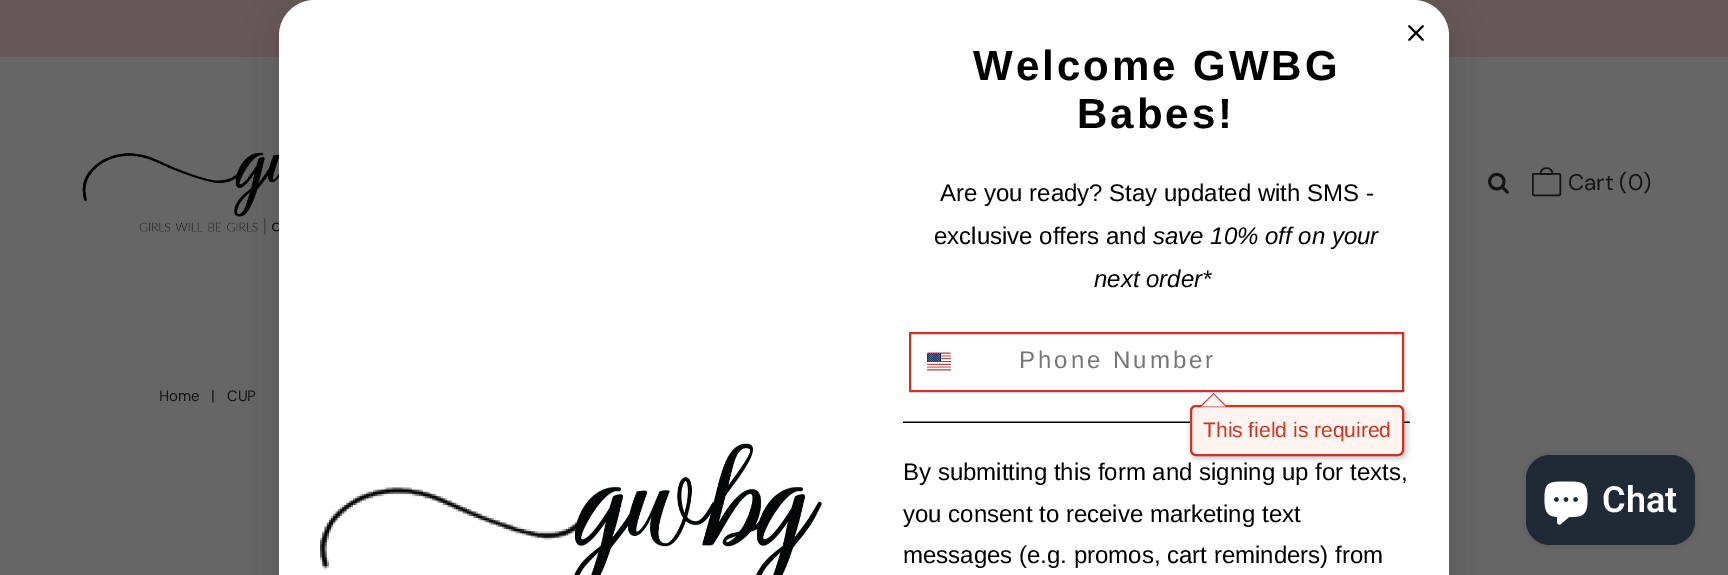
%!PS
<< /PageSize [1728 575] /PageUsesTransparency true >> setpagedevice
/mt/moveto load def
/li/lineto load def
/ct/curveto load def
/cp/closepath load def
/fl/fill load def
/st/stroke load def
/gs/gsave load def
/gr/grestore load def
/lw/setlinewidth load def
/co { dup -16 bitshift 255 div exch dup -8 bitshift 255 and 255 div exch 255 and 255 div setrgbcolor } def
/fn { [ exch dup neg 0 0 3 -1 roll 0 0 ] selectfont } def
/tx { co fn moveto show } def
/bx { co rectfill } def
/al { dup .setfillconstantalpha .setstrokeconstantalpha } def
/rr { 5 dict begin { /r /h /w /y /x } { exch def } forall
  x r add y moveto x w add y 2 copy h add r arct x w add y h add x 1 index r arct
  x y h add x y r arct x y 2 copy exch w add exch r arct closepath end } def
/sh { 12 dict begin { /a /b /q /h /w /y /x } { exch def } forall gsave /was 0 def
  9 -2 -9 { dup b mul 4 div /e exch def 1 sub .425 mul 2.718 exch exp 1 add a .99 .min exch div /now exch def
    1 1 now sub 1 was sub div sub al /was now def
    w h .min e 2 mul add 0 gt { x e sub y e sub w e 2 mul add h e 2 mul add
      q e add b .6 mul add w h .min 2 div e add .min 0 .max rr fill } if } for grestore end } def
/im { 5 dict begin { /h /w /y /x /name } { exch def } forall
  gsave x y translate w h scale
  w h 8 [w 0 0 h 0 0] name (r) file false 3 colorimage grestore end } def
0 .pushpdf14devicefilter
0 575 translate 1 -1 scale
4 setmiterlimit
0 0 1728 575 16#666666 bx
0 0 1728 57 16#665958 bx
(media/4.raw) 82 125 197 110 im
(media/5.raw) 1488 172 21 22 im
16#000000 co
279 0 1170 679 36 22.5 .15 sh
16#FFFFFF co
315 0 mt 1413 0 li 1433 0 1449 16 1449 36 ct 1449 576 li 279 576 li 279 36 li 279 16 295 0 315 0 ct cp fl
16#000000 co
1.8 lw
1 setlinecap
1 setlinejoin
1409 26 mt 1423 40 li 1409 40 mt 1423 26 li cp st
(media/1.raw) 320 443 502 132 im
16#D0331F co
2 lw
0 setlinecap
0 setlinejoin
910 333 493 58 rectstroke
(media/2.raw) 927 352 24 19 im
(media/3.raw) 903 421 507 2 im
16#000000 co
1191 407 215 51 6 3 .26 sh
16#FFF4F0 co
1191 406 212 49 5 rr gs fl gr
16#D0331F co
st
1227 406.5 mt 1200 406.5 li 1213.5 393 li cp fl
16#FFF4F0 co
1225.5 406.5 mt 1201.5 406.5 li 1213.5 394.5 li cp fl
16#141414 co
1.5 lw
1546.5 168 mt 1550 168 1552.5 170.5 1552.5 174 ct 1540.5 174 li 1540.5 170.5 1543 168 1546.5 168 ct cp st
1532.75 173.75 27.5 21.5 1.25 rr st
16#000000 co
1526 455 169 90 24 4 .15 sh
16#202A36 co
1526 455 169 90 24 rr fl
(media/6.raw) 1544 481 44 44 im
/LiberationSans-Bold 42 fn
16#000000 co
973 80 mt 3 0 (Welcome GWBG) ashow
1077 128 mt 3 0 (Babes!) ashow
(Are you ready? Stay updated with SMS -) 940 201 /LiberationSans-Regular 24 16#000000 tx
(exclusive offers and) 934 244 /LiberationSans-Regular 24 16#000000 tx
(save 10% off on your) 1153 244 /LiberationSans-Italic 24 16#000000 tx
(next order*) 1094 287 /LiberationSans-Italic 24 16#000000 tx
/LiberationSans-Regular 24 fn
16#767676 co
1019 368 mt 3 0 (Phone Number) ashow
(This field is required) 1203 437 /LiberationSans-Regular 21 16#D0331F tx
(By submitting this form and signing up for texts,) 903 480 /LiberationSans-Regular 24 16#000000 tx
(you consent to receive marketing text) 903 522 /LiberationSans-Regular 24 16#000000 tx
(messages \(e.g. promos, cart reminders\) from) 903 563 /LiberationSans-Regular 24 16#000000 tx
(Cart \(0\)) 1568 190 /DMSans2-Regular 22.5 16#141414 tx
(Home) 159 401 /DMSans-Regular 15 16#141414 tx
(|) 211 401 /DMSans-Regular 15 16#141414 tx
(CUP) 227 401 /DMSans-Regular 15 16#141414 tx
(Chat) 1602 512 /Roboto-SemiBold 36 16#FFFFFF tx
.poppdf14devicefilter showpage
